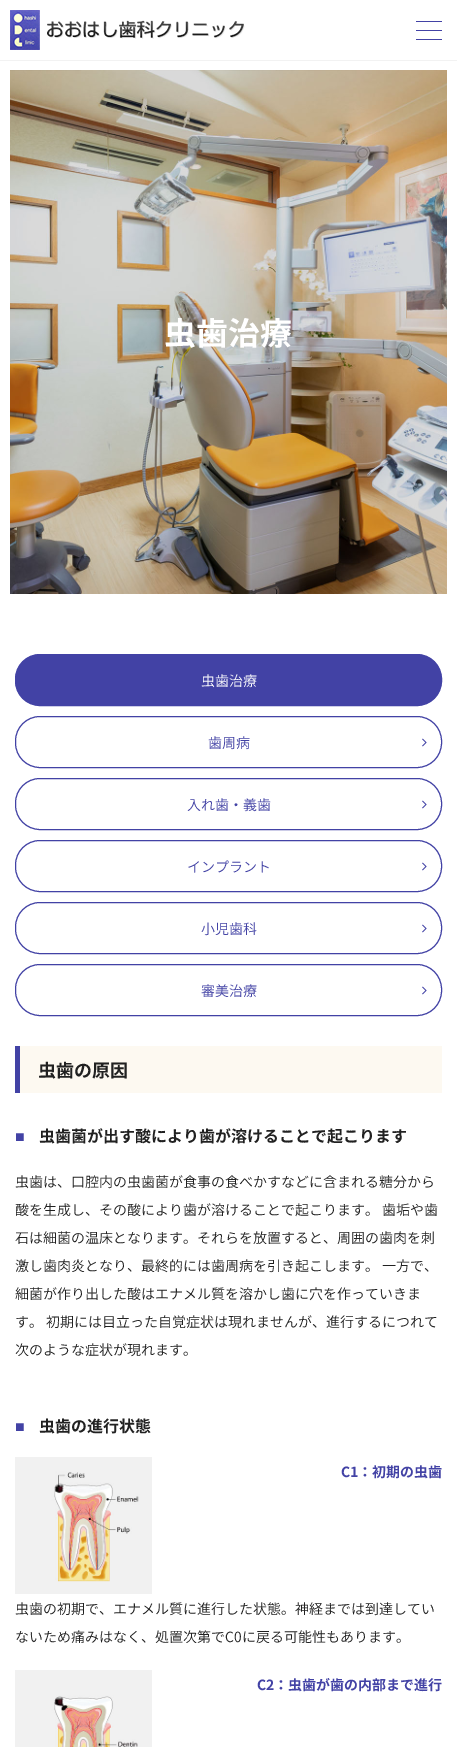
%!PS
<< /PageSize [457 1747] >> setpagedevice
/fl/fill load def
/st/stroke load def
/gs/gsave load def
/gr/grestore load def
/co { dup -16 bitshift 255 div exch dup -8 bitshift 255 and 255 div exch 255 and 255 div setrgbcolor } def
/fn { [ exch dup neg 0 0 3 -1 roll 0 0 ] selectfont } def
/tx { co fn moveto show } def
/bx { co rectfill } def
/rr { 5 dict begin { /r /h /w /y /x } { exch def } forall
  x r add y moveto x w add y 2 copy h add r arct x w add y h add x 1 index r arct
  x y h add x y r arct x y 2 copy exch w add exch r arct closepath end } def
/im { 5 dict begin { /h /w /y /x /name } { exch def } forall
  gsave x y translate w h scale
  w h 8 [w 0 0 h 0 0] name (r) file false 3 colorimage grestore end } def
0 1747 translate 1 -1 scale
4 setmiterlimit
0 0 457 1747 16#FFFFFF bx
0 60 457 1 16#F2F2F2 bx
(media/1.raw) 10 10 235 40 im
416 21 26 1 16#4242A5 bx
416 30 26 1 16#4242A5 bx
416 39 26 1 16#4242A5 bx
(media/2.raw) 10 70 437 524 im
15.5 654.5 426 51 24.5 rr gs fl gr
st
15.5 716.5 426 51 24.5 rr st
(media/3.raw) 422 738 5 9 im
15.5 778.5 426 51 24.5 rr st
(media/3.raw) 422 800 5 9 im
15.5 840.5 426 51 24.5 rr st
(media/3.raw) 422 862 5 9 im
15.5 902.5 426 51 24.5 rr st
(media/3.raw) 422 924 5 9 im
15.5 964.5 426 51 24.5 rr st
(media/3.raw) 422 986 5 9 im
20 1046 422 47 16#FDF9F1 bx
15 1046 5 47 16#4242A5 bx
(media/4.raw) 15 1457 137 137 im
(media/5.raw) 15 1670 137 77 im
(虫歯治療) 164 345 /NotoSansJP-Bold 32 16#FFFFFF tx
(虫歯治療) 201 686 /NotoSansJP-Light 14 16#FFFFFF tx
(歯周病) 208 748 /NotoSansJP-Light 14 16#4242A5 tx
(入れ歯・義歯) 187 810 /NotoSansJP-Light 14 16#4242A5 tx
(インプラント) 187 872 /NotoSansJP-Light 14 16#4242A5 tx
(小児歯科) 201 934 /NotoSansJP-Light 14 16#4242A5 tx
(審美治療) 201 996 /NotoSansJP-Light 14 16#4242A5 tx
(虫歯の原因) 38 1077 /NotoSansJP-Bold 18 16#212121 tx
(■) 15 1142 /LiberationSans-Bold 16 16#4242A5 tx
(虫歯菌が出す酸により歯が溶けることで起こります) 39 1142 /NotoSansJP-Bold 16 16#212121 tx
(虫歯は、口腔内の虫歯菌が食事の食べかすなどに含まれる糖分から) 15 1187 /NotoSansJP-Light 14 16#212121 tx
(酸を生成し、その酸により歯が溶けることで起こります。 歯垢や歯) 15 1215 /NotoSansJP-Light 14 16#212121 tx
(石は細菌の温床となります。それらを放置すると、周囲の歯肉を刺) 15 1243 /NotoSansJP-Light 14 16#212121 tx
(激し歯肉炎となり、最終的には歯周病を引き起こします。 一方で、) 15 1271 /NotoSansJP-Light 14 16#212121 tx
(細菌が作り出した酸はエナメル質を溶かし歯に穴を作っていきま) 15 1299 /NotoSansJP-Light 14 16#212121 tx
(す。 初期には目立った自覚症状は現れませんが、進行するにつれて) 15 1327 /NotoSansJP-Light 14 16#212121 tx
(次のような症状が現れます。) 15 1355 /NotoSansJP-Light 14 16#212121 tx
(■) 15 1432 /LiberationSans-Bold 16 16#4242A5 tx
(虫歯の進行状態) 39 1432 /NotoSansJP-Bold 16 16#212121 tx
(C1：初期の虫歯) 341 1477 /NotoSansJP-Bold 14 16#4242A5 tx
(虫歯の初期で、エナメル質に進行した状態。神経までは到達してい) 15 1614 /NotoSansJP-Light 14 16#212121 tx
(ないため痛みはなく、処置次第でC0に戻る可能性もあります。) 15 1642 /NotoSansJP-Light 14 16#212121 tx
(C2：虫歯が歯の内部まで進行) 257 1690 /NotoSansJP-Bold 14 16#4242A5 tx
showpage
